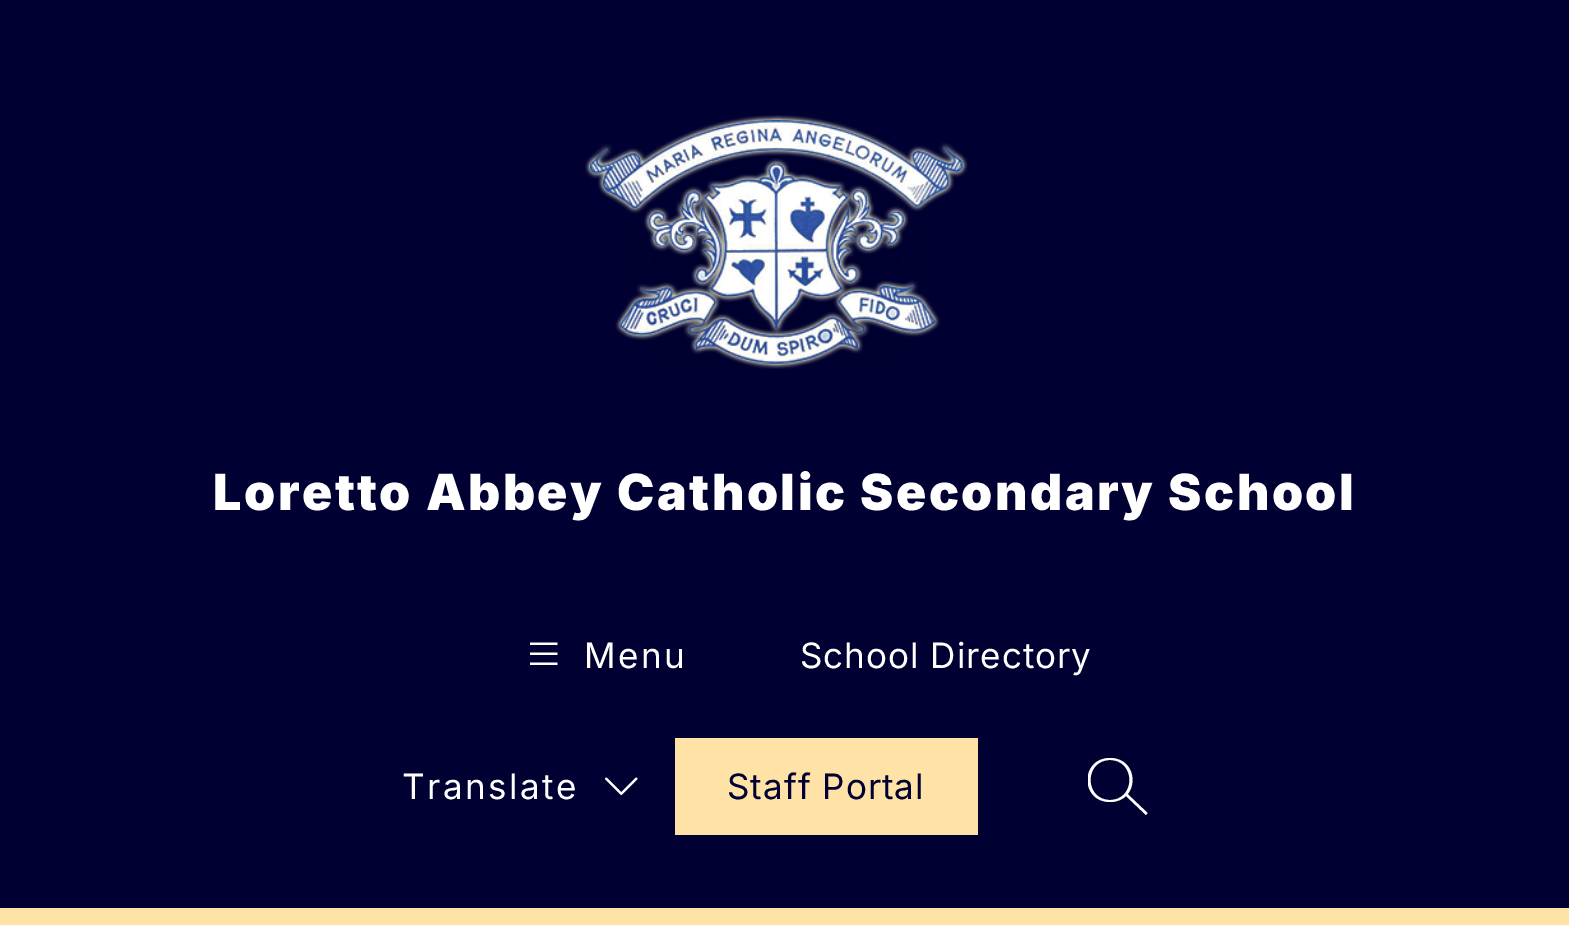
%!PS
<< /PageSize [1569 925] >> setpagedevice
/mt/moveto load def
/li/lineto load def
/ct/curveto load def
/cp/closepath load def
/gs/gsave load def
/gr/grestore load def
/co { dup -16 bitshift 255 div exch dup -8 bitshift 255 and 255 div exch 255 and 255 div setrgbcolor } def
/fn { [ exch dup neg 0 0 3 -1 roll 0 0 ] selectfont } def
/bx { co rectfill } def
/im { 5 dict begin { /h /w /y /x /name } { exch def } forall
  gsave x y translate w h scale
  w h 8 [w 0 0 h 0 0] name (r) file false 3 colorimage grestore end } def
0 925 translate 1 -1 scale
4 setmiterlimit
0 0 1569 925 16#FFE3A6 bx
0 0 1569 908 16#000033 bx
(media/1.raw) 585 115 383 254 im
(media/2.raw) 530 642 28 23 im
(media/3.raw) 605 777 33 18 im
675 738 303 97 16#FFE3A6 bx
gs
1088 755 60 60 rectclip
16#FFFFFF co
1110 800 mt 1136 800 1136 760 1110 760 ct 1084 760 1084 800 1110 800 ct cp 1110 802 mt 1140 802 1140 758 1110 758 ct 1080 758 1080 802 1110 802 ct cp eofill
gr
16#FFFFFF co
1146 815 mt 1125.5 795.5 li 1127 793.5 li 1147.5 813 li cp eofill
/Inter-Black 50 fn
213 510 mt 2.5 0 (Loretto Abbey Catholic Secondary School) ashow
/Inter-Regular 35 fn
584 668 mt 2.5 0 (Menu) ashow
800 668 mt 1 0 (School Directory) ashow
402 799 mt 2.5 0 (Translate) ashow
16#000033 co
727 799 mt 1 0 (Staff Portal) ashow
showpage
